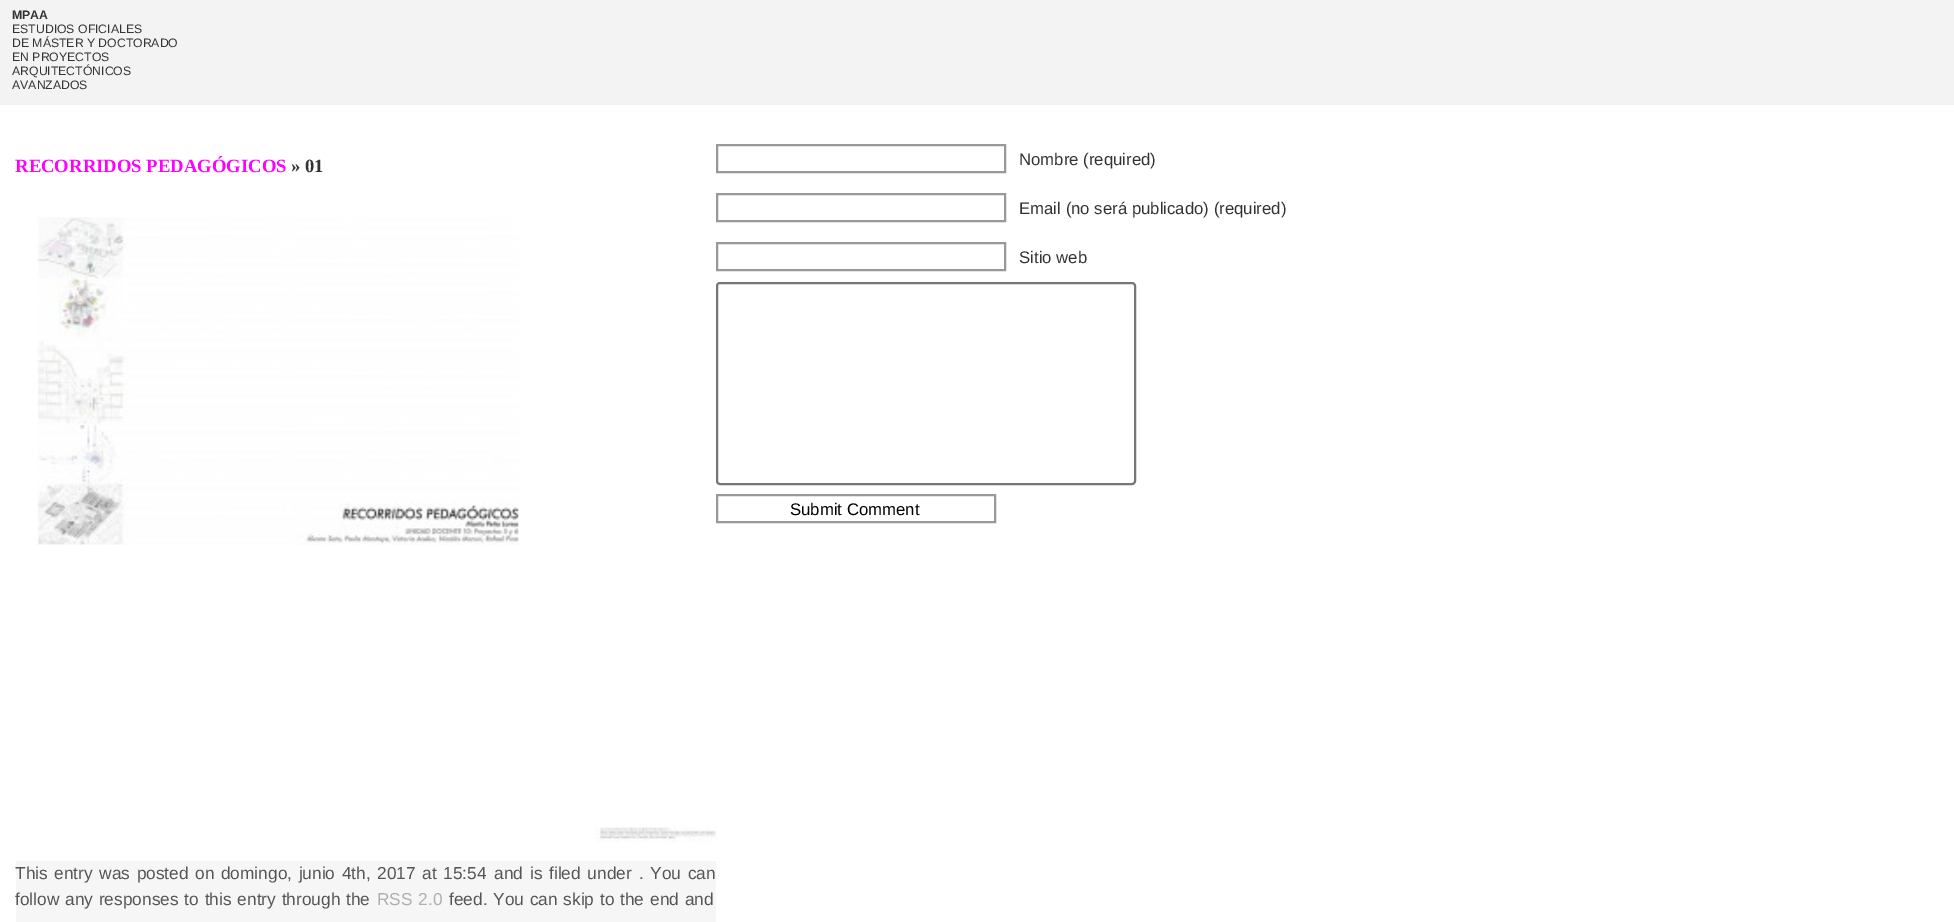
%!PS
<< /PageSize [1954 922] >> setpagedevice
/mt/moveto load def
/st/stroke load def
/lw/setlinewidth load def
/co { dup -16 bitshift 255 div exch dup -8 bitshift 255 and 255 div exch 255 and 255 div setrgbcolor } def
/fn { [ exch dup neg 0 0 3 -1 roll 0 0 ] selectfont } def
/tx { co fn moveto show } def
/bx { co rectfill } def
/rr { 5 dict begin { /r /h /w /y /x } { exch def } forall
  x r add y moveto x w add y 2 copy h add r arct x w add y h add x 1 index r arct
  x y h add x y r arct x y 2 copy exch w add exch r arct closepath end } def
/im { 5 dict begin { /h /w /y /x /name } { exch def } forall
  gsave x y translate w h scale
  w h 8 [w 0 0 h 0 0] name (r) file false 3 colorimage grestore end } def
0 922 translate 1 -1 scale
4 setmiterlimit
0 0 1954 922 16#FFFFFF bx
0 0 1954 105 16#F3F3F3 bx
(media/1.raw) 37 217 482 328 im
(media/2.raw) 595 827 121 16 im
16 861 700 61 16#F6F6F6 bx
16#999999 co
2 lw
717 145 288 27 rectstroke
717 194 288 27 rectstroke
717 243 288 27 rectstroke
16#767676 co
717 283 418 201 3 rr st
16#999999 co
717 495 278 27 rectstroke
(MPAA) 12 19 /LiberationSans-Bold 12.25 16#333333 tx
(ESTUDIOS OFICIALES) 12 33 /LiberationSans-Regular 12.25 16#333333 tx
(DE MÁSTER Y DOCTORADO) 12 47 /LiberationSans-Regular 12.25 16#333333 tx
(EN PROYECTOS) 12 61 /LiberationSans-Regular 12.25 16#333333 tx
(ARQUITECTÓNICOS) 12 75 /LiberationSans-Regular 12.25 16#333333 tx
(AVANZADOS) 12 89 /LiberationSans-Regular 12.25 16#333333 tx
(RECORRIDOS PEDAGÓGICOS) 15 172 /LiberationSerif-Bold 18.7 16#FF00FF tx
(» 01) 291 172 /LiberationSerif-Bold 18.7 16#333333 tx
/LiberationSans-Regular 17.3 fn
16#555555 co
15 879 mt 1.75 0 32 (This entry was posted on domingo, junio 4th, 2017 at 15:54) widthshow
494 879 mt 2 0 32 (and is filed under .) widthshow
650 879 mt 2 0 32 (You can) widthshow
15 905 mt 1 0 32 (follow any responses to this entry through the) widthshow
16#AFAFAF co
377 905 mt 1 0 32 (RSS 2.0) widthshow
(feed.) 449 905 /LiberationSans-Regular 17.3 16#555555 tx
493 905 mt 1 0 32 (You can skip to the end and) widthshow
(Nombre \(required\)) 1019 165 /LiberationSans-Regular 16.75 16#333333 tx
(Email \(no será publicado\) \(required\)) 1019 214 /LiberationSans-Regular 16.75 16#333333 tx
(Sitio web) 1019 263 /LiberationSans-Regular 16.75 16#333333 tx
(Submit Comment) 790 515 /LiberationSans-Regular 16.75 16#000000 tx
showpage
